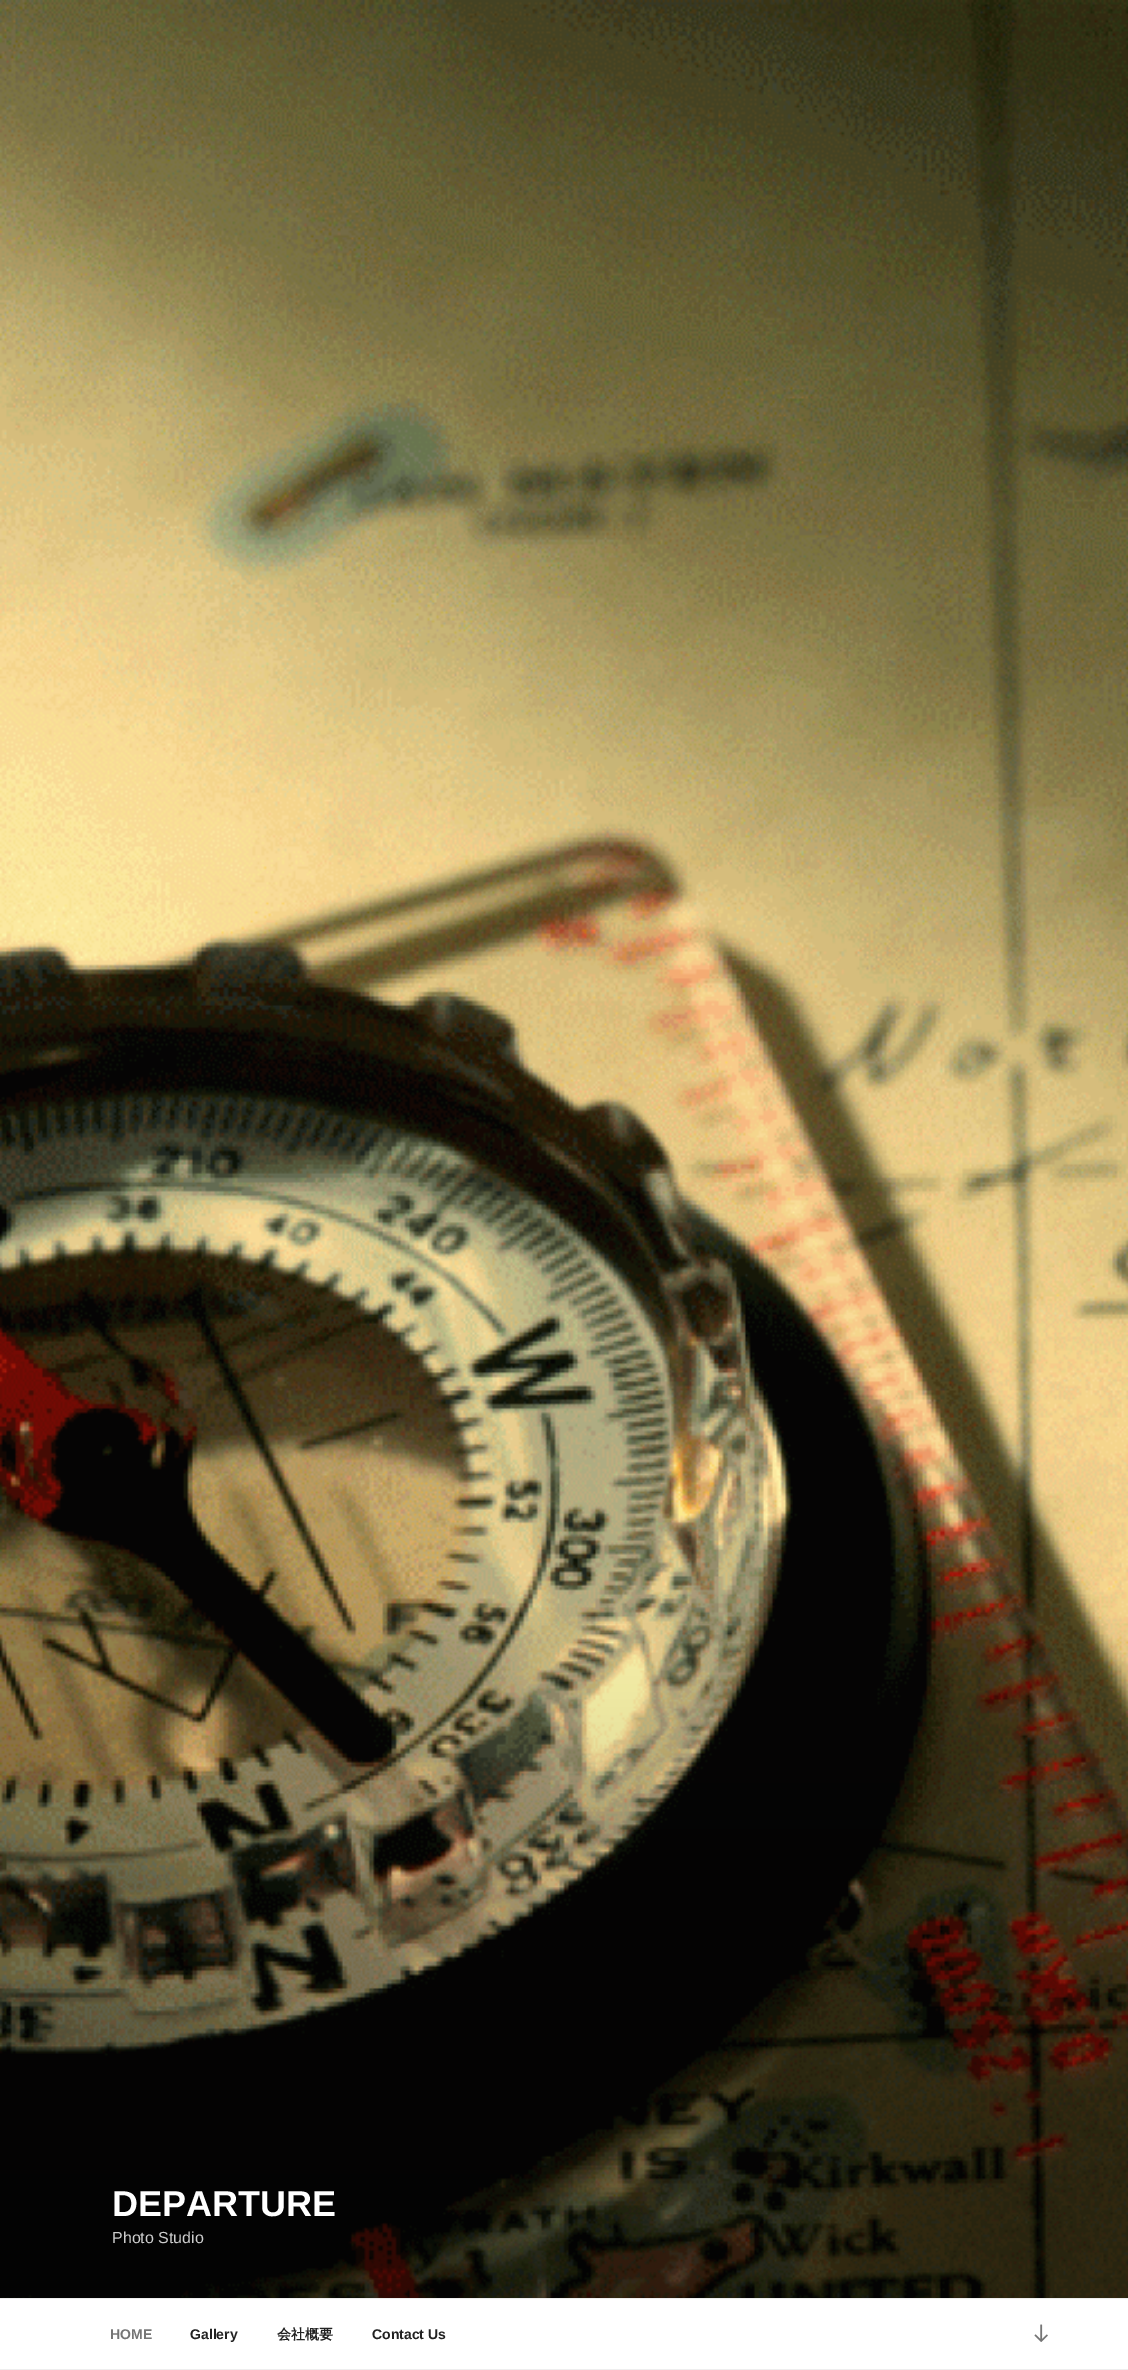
%!PS
<< /PageSize [1128 2370] >> setpagedevice
/co { dup -16 bitshift 255 div exch dup -8 bitshift 255 and 255 div exch 255 and 255 div setrgbcolor } def
/fn { [ exch dup neg 0 0 3 -1 roll 0 0 ] selectfont } def
/tx { co fn moveto show } def
/bx { co rectfill } def
/im { 5 dict begin { /h /w /y /x /name } { exch def } forall
  gsave x y translate w h scale
  w h 8 [w 0 0 h 0 0] name (r) file false 3 colorimage grestore end } def
0 2370 translate 1 -1 scale
4 setmiterlimit
0 0 1128 2370 16#FFFFFF bx
(media/1.raw) 0 0 1128 2298 im
0 2298 1128 1 16#EEEEEE bx
0 2369 1128 1 16#EEEEEE bx
(media/2.raw) 1034 2324 14 18 im
(DEPARTURE) 112 2216 /LiberationSans-Bold 36 16#FFFFFF tx
(Photo Studio) 112 2243 /LiberationSans-Regular 16 16#CDCDCD tx
(HOME) 110 2339 /LiberationSans-Bold 14 16#767676 tx
(Gallery) 190 2339 /LiberationSans-Bold 14 16#222222 tx
(会社概要) 277 2339 /WenQuanYiZenHei-Bold 14 16#222222 tx
(Contact Us) 372 2339 /LiberationSans-Bold 14 16#222222 tx
showpage
